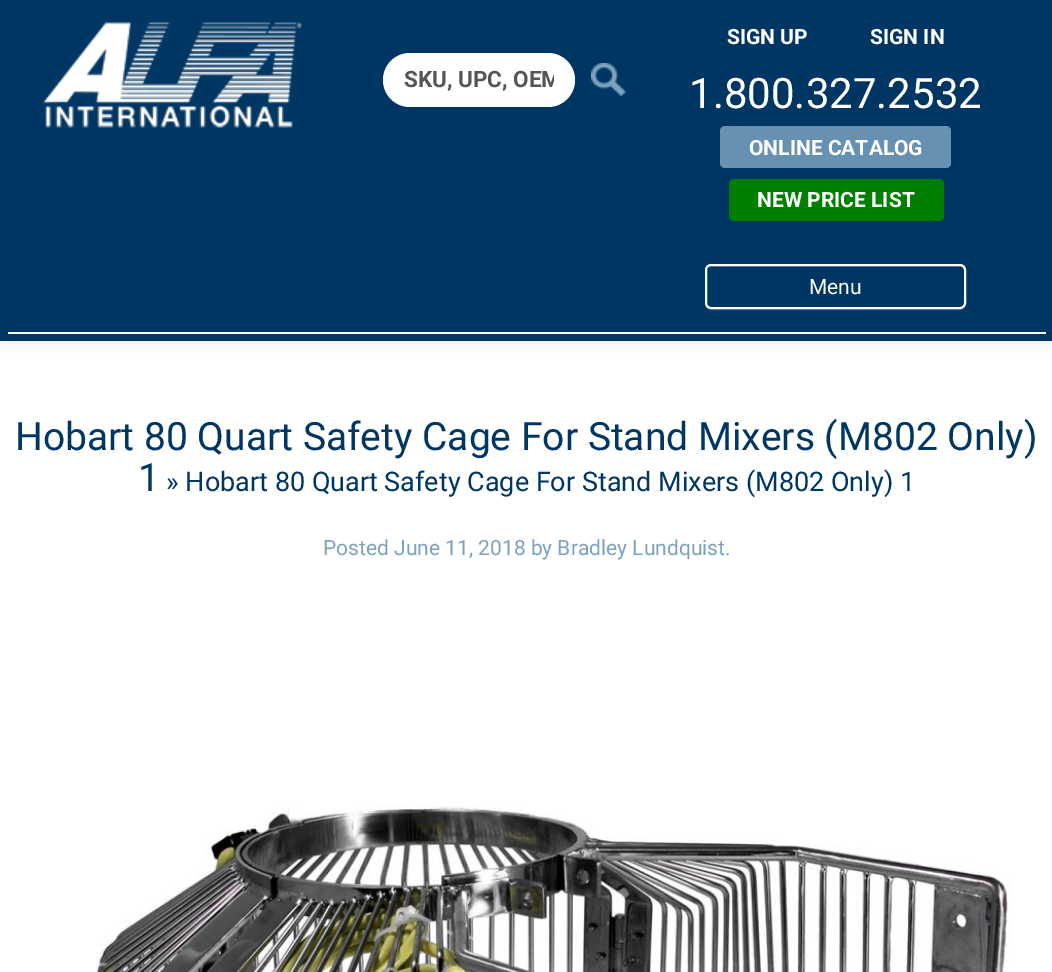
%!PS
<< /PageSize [1052 972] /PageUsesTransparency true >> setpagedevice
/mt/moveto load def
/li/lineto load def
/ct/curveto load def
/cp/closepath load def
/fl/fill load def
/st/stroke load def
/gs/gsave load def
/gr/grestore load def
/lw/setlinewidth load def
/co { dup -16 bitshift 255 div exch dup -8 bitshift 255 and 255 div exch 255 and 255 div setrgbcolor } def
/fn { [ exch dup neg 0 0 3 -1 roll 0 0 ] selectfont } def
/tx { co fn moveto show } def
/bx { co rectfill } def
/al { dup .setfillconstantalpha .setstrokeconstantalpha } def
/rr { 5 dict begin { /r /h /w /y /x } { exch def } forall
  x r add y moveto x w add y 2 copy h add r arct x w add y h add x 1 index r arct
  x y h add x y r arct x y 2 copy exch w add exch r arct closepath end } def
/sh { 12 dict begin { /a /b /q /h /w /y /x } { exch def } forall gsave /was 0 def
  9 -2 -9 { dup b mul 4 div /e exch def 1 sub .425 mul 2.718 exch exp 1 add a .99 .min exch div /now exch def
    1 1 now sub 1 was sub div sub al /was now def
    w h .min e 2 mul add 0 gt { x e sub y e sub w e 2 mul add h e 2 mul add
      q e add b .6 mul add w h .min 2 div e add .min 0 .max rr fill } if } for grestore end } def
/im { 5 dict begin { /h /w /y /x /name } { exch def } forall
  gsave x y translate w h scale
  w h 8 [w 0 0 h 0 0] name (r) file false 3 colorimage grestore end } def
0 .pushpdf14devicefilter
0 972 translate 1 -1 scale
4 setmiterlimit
0 0 1052 972 16#FFFFFF bx
16#000000 co
0 2 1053 340 0 7.5 .1 sh
0 0 1052 341 16#003663 bx
(media/1.raw) 43 22 259 106 im
16#FFFFFF co
383 53 192 54 27 rr fl
(media/2.raw) 591 63 35 33 im
16#6791B2 co
720 126 231 42 5 rr fl
16#008000 co
729 179 215 42 5 rr fl
16#13456F co
705 303 mt 705 306 706 310 710 311 ct 961 311 li 965 310 966 306 966 303 ct 966 306 963 309 960 309 ct 711 309 li 708 309 705 306 705 303 ct cp fl
16#003663 co
705 264 261 45 6 rr fl
16#1A4A73 co
711 267 mt 960 267 li 962 267 964 269 964 272 ct 964 304 li 963 307 li 964 306 965 304 965 303 ct 965 271 li 965 268 963 266 960 266 ct 712 266 li 710 266 709 267 708 268 ct cp fl
16#FFFFFF co
2 lw
706 265 259 43 5 rr st
8 332 1038 2 16#FFFFFF bx
(media/3.raw) 96 805 915 167 im
gs
404 66 150 27 rectclip
(SKU, UPC, OEM) 404 87 /Roboto-Bold 22.5 16#555555 tx
gr
(SIGN UP) 727 44 /Roboto-Bold 21 16#FFFFFF tx
(SIGN IN) 870 44 /Roboto-Bold 21 16#FFFFFF tx
(1.800.327.2532) 689 108 /Roboto-Regular 42 16#FFFFFF tx
(ONLINE CATALOG) 749 155 /Roboto-Bold 21 16#FFFFFF tx
(NEW PRICE LIST) 757 207 /Roboto-Bold 21 16#FFFFFF tx
(Menu) 809 294 /Roboto-Regular 21 16#FFFFFF tx
(Hobart 80 Quart Safety Cage For Stand Mixers \(M802 Only\)) 15 450 /Roboto-Regular 39 16#003663 tx
(1) 138 491 /Roboto-Regular 39 16#003663 tx
(» Hobart 80 Quart Safety Cage For Stand Mixers \(M802 Only\) 1) 166 491 /Roboto-Regular 27 16#003663 tx
(Posted June 11, 2018 by Bradley Lundquist.) 323 555 /Roboto-Regular 21 16#7DA2BF tx
.poppdf14devicefilter showpage
